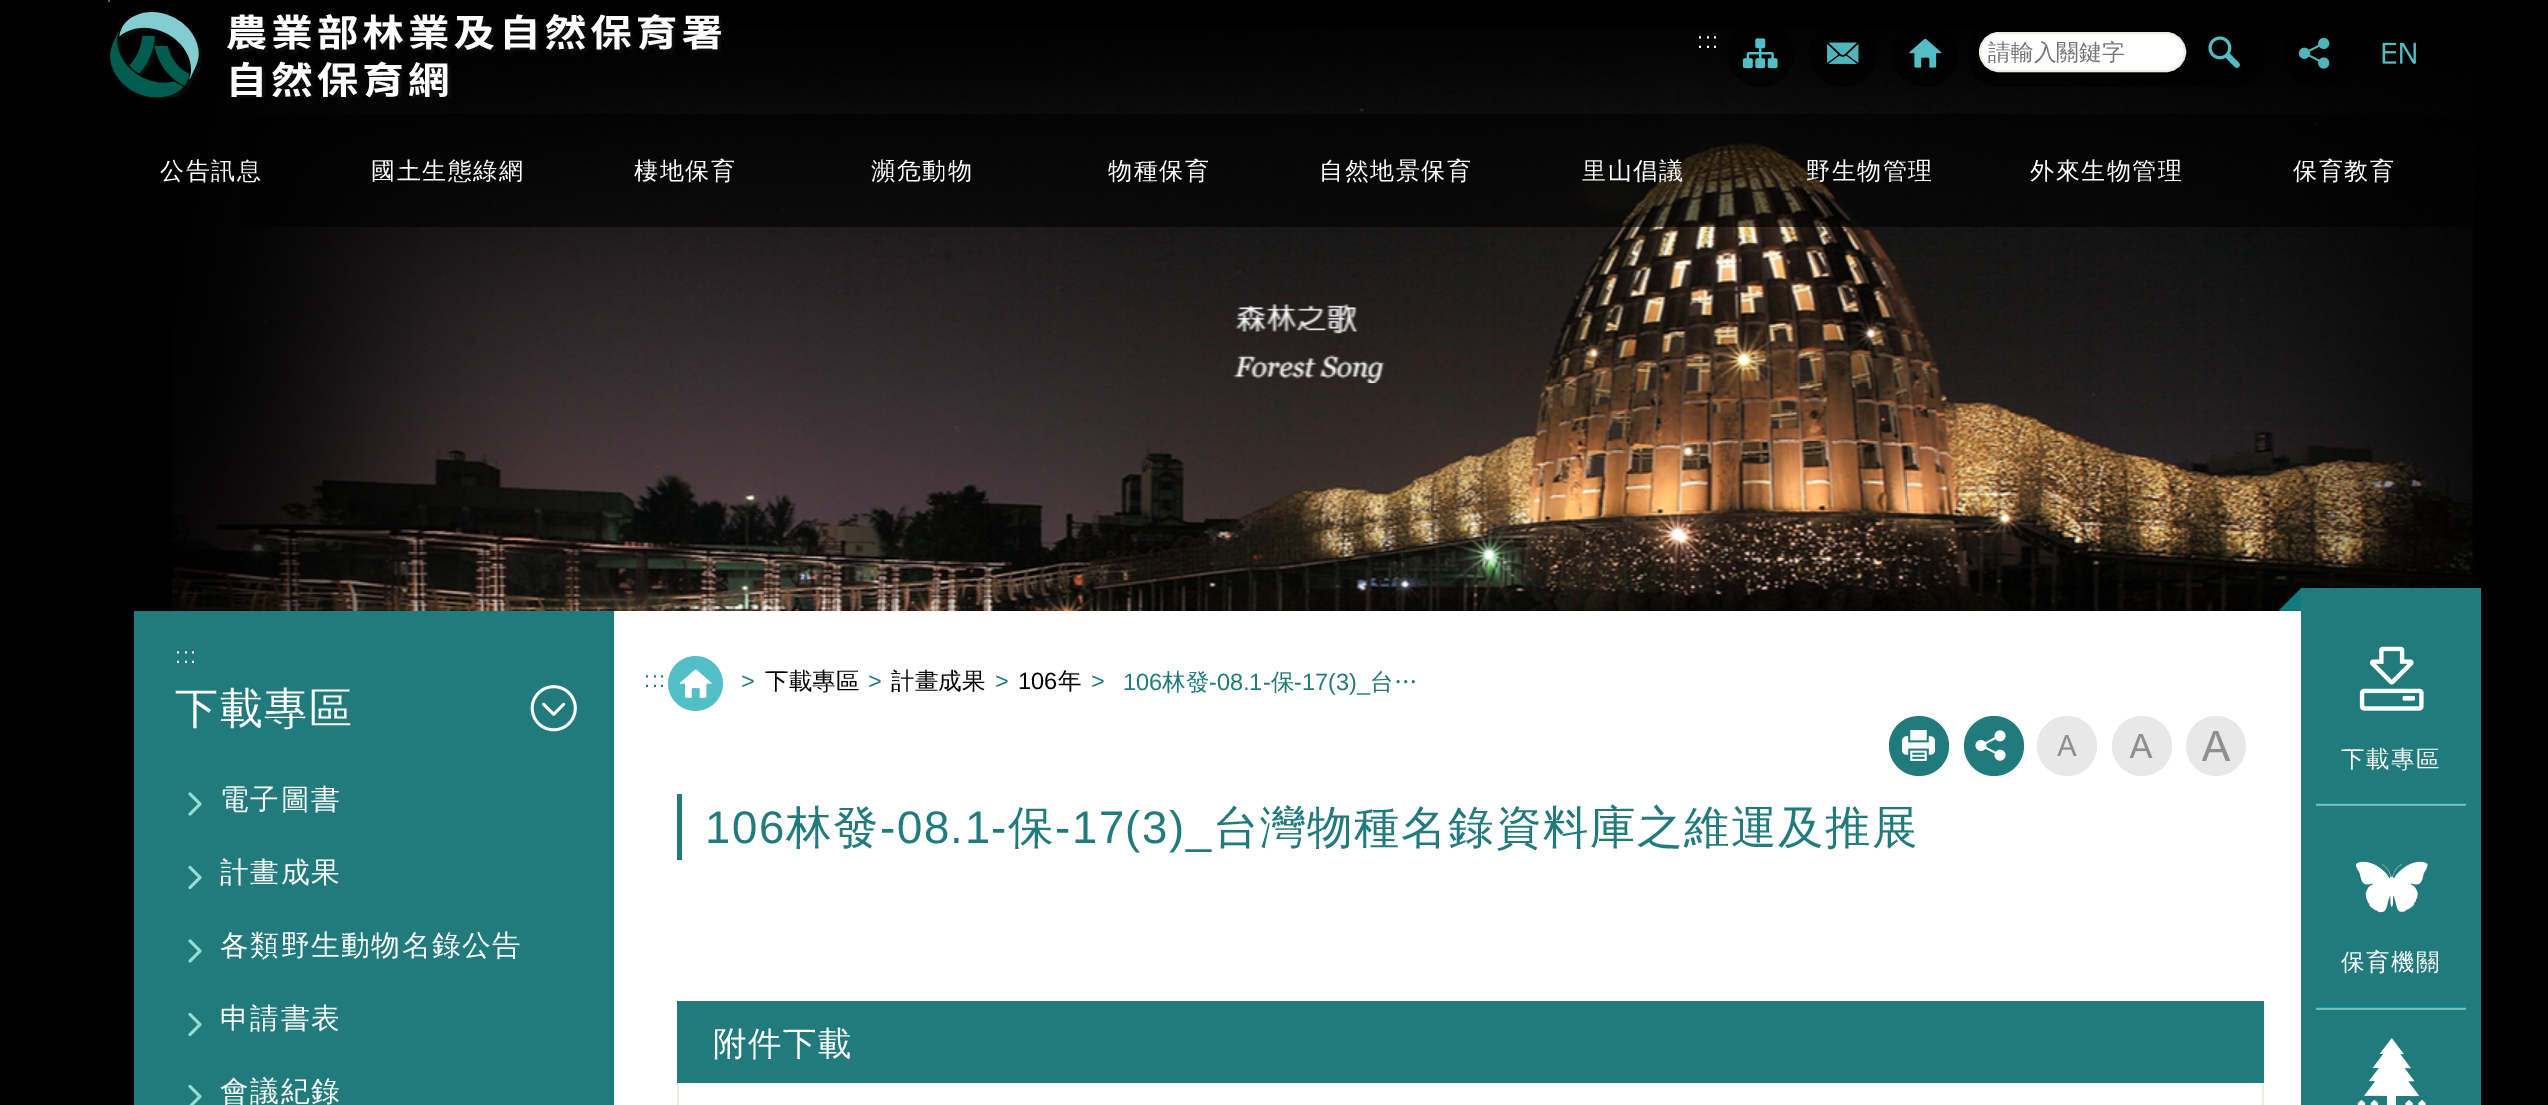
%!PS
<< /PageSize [2548 1105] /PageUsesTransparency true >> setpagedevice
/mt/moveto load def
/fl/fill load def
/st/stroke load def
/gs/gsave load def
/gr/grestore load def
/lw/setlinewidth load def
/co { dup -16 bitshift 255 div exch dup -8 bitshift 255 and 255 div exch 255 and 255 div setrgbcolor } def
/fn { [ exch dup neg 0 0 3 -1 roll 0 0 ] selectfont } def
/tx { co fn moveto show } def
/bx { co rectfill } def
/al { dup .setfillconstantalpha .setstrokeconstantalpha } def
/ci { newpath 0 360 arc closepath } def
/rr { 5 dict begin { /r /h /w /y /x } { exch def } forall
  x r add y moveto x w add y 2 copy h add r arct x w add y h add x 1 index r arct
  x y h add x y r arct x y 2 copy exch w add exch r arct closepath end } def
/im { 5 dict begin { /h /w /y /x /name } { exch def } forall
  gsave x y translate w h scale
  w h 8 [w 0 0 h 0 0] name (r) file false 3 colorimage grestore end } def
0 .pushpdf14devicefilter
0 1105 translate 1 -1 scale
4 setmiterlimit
0 0 2548 1105 16#000000 bx
(media/1.raw) 171 28 2303 583 im
108 0 2 2 16#217B7D bx
(media/2.raw) 110 12 613 86 im
0.6 al
16#000000 co
1760.5 53.5 33.5 ci fl
1 al
(media/3.raw) 1742 38 36 31 im
0.6 al
1809 20 68 67 33.5 rr fl
1 al
(media/4.raw) 1827 42 32 22 im
0.6 al
1925.5 53.5 33.5 ci fl
1 al
(media/5.raw) 1909 38 33 30 im
0.6 al
1967 20 300 67 33.5 rr fl
1 al
16#FFFFFF co
1980 33 205 38 19 rr gs fl gr
16#EFECE3 co
2 lw
st
(media/6.raw) 2208 36 32 32 im
0.6 al
16#000000 co
2283 20 68 67 33.5 rr fl
1 al
(media/7.raw) 2298 37 32 32 im
(media/8.raw) 2382 42 34 22 im
0.6 al
239 114 2233 113 16#000000 bx
1 al
134 611 480 494 16#217B7D bx
(media/9.raw) 530 685 47 47 im
(media/10.raw) 188 792 14 24 im
(media/11.raw) 188 865 14 25 im
(media/10.raw) 188 939 14 24 im
(media/11.raw) 188 1012 14 25 im
(media/12.raw) 188 1084 14 21 im
614 611 1687 494 16#FFFFFF bx
(media/13.raw) 668 656 55 55 im
16#217B7D co
1919 746 30 ci fl
(media/14.raw) 1902 730 33 31 im
1994 746 30 ci fl
(media/15.raw) 1975 730 31 31 im
16#E8E8E8 co
2067 746 30 ci fl
(media/16.raw) 2057 735 20 21 im
2142 746 30 ci fl
(media/17.raw) 2129 734 24 24 im
2216 746 30 ci fl
(media/18.raw) 2202 731 29 30 im
(media/19.raw) 2279 588 22 23 im
677 794 5 66 16#217B7D bx
2301 588 180 517 16#217B7D bx
2316 1009 150 1 16#7AB0B1 bx
2316 805 150 1 16#7AB0B1 bx
2316 803 150 1 16#0C9BA0 bx
2316 804 150 1 16#6DC3C6 bx
(media/20.raw) 2359 646 65 65 im
2316 1007 150 1 16#0C9BA0 bx
2316 1008 150 1 16#6DC3C6 bx
(media/21.raw) 2355 861 73 52 im
(media/22.raw) 2357 1038 69 67 im
677 1001 1587 82 16#217B7D bx
2262 1083 2 22 16#F0EDDE bx
677 1083 2 22 16#F0EDDE bx
/LiberationSans-Regular 22 fn
16#FFFFFF co
1697 48 mt 1.5 0 (:::) ashow
(請輸入關鍵字) 1988 60 /WenQuanYiZenHei-Medium 22.75 16#757575 tx
/WenQuanYiZenHei-Medium 24 fn
16#FFFFFF co
160 179 mt 1.5 0 (公告訊息) ashow
371 179 mt 1.5 0 (國土生態綠網) ashow
634 179 mt 1.5 0 (棲地保育) ashow
871 179 mt 1.5 0 (瀕危動物) ashow
1108 179 mt 1.5 0 (物種保育) ashow
1319 179 mt 1.5 0 (自然地景保育) ashow
1582 179 mt 1.5 0 (里山倡議) ashow
1806 179 mt 1.5 0 (野生物管理) ashow
2030 179 mt 1.5 0 (外來生物管理) ashow
2293 179 mt 1.5 0 (保育教育) ashow
/LiberationSans-Regular 22 fn
175 663 mt 1.5 0 (:::) ashow
/WenQuanYiZenHei-Medium 43 fn
175 723 mt 1.5 0 (下載專區) ashow
/WenQuanYiZenHei-Medium 28.75 fn
220 809 mt 1.5 0 (電子圖書) ashow
220 882 mt 1.5 0 (計畫成果) ashow
220 955 mt 1.5 0 (各類野生動物名錄公告) ashow
220 1028 mt 1.5 0 (申請書表) ashow
220 1101 mt 1.5 0 (會議紀錄) ashow
/LiberationSans-Regular 22 fn
16#217B7D co
644 687 mt 1.5 0 (:::) ashow
(>) 741 689 /LiberationSans-Regular 23.5 16#217B7D tx
(下載專區) 765 689 /WenQuanYiZenHei-Medium 23.5 16#000000 tx
(>) 868 689 /LiberationSans-Regular 23.5 16#217B7D tx
(計畫成果) 891 689 /WenQuanYiZenHei-Medium 23.5 16#000000 tx
(>) 995 689 /LiberationSans-Regular 23.5 16#217B7D tx
(106) 1018 689 /LiberationSans-Regular 23.5 16#000000 tx
(年) 1058 689 /WenQuanYiZenHei-Medium 23.5 16#000000 tx
(>) 1091 689 /LiberationSans-Regular 23.5 16#217B7D tx
(106) 1123 690 /LiberationSans-Regular 23.5 16#217B7D tx
(林發) 1162 690 /WenQuanYiZenHei-Medium 23.5 16#217B7D tx
(-08.1-) 1209 690 /LiberationSans-Regular 23.5 16#217B7D tx
(保) 1271 690 /WenQuanYiZenHei-Medium 23.5 16#217B7D tx
(-17\(3\)_) 1294 690 /LiberationSans-Regular 23.5 16#217B7D tx
(台…) 1370 690 /WenQuanYiZenHei-Medium 23.5 16#217B7D tx
/LiberationSans-Regular 45.6 fn
705 843 mt 1.5 0 (106) ashow
/WenQuanYiZenHei-Medium 45.6 fn
786 843 mt 1.5 0 (林發) ashow
/LiberationSans-Regular 45.6 fn
880 843 mt 1.5 0 (-08.1-) ashow
/WenQuanYiZenHei-Medium 45.6 fn
1008 843 mt 1.5 0 (保) ashow
/LiberationSans-Regular 45.6 fn
1055 843 mt 1.5 0 (-17\(3\)_) ashow
/WenQuanYiZenHei-Medium 45.6 fn
1213 843 mt 1.5 0 (台灣物種名錄資料庫之維運及推展) ashow
/WenQuanYiZenHei-Medium 23.5 fn
16#FFFFFF co
2341 767 mt 1.5 0 (下載專區) ashow
2341 970 mt 1.5 0 (保育機關) ashow
/WenQuanYiZenHei-Medium 33.5 fn
713 1055 mt 1.5 0 (附件下載) ashow
.poppdf14devicefilter showpage
